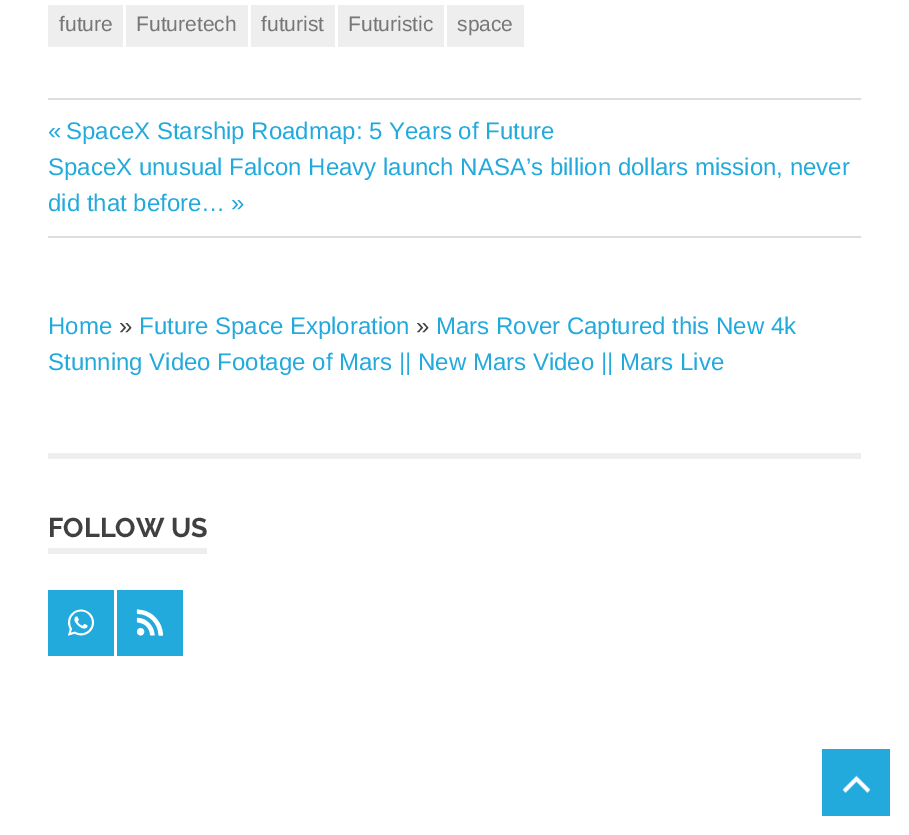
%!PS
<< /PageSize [909 835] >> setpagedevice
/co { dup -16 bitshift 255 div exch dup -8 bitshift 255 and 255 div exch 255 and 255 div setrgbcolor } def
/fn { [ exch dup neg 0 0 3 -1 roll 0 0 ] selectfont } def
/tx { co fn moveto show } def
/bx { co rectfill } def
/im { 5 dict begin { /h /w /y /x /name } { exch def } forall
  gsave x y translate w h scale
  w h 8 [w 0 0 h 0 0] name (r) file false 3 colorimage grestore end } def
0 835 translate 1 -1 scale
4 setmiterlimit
0 0 909 835 16#FFFFFF bx
48 5 75 42 16#EEEEEE bx
126 5 122 42 16#EEEEEE bx
251 5 84 42 16#EEEEEE bx
338 5 106 42 16#EEEEEE bx
447 5 77 42 16#EEEEEE bx
48 98 813 2 16#DDDDDD bx
48 236 813 2 16#DDDDDD bx
48 453 813 6 16#EEEEEE bx
48 548 159 6 16#EEEEEE bx
48 590 66 66 16#22AADD bx
(media/1.raw) 68 609 27 27 im
117 590 66 66 16#22AADD bx
(media/2.raw) 136 609 28 27 im
822 749 68 67 16#22AADD bx
(media/3.raw) 842 775 29 19 im
(future) 59 31 /LiberationSans-Regular 21 16#777777 tx
(Futuretech) 136 31 /LiberationSans-Regular 21 16#777777 tx
(futurist) 261 31 /LiberationSans-Regular 21 16#777777 tx
(Futuristic) 348 31 /LiberationSans-Regular 21 16#777777 tx
(space) 457 31 /LiberationSans-Regular 21 16#777777 tx
(«) 48 139 /LiberationSans-Regular 24 16#22AADD tx
(SpaceX Starship Roadmap: 5 Years of Future) 66 139 /LiberationSans-Regular 24 16#22AADD tx
(SpaceX unusual Falcon Heavy launch NASA’s billion dollars mission, never) 48 175 /LiberationSans-Regular 24 16#22AADD tx
(did that before…) 48 211 /LiberationSans-Regular 24 16#22AADD tx
(») 231 211 /LiberationSans-Regular 24 16#22AADD tx
(Home) 48 334 /LiberationSans-Regular 24 16#22AADD tx
(») 119 334 /LiberationSans-Regular 24 16#404040 tx
(Future Space Exploration) 139 334 /LiberationSans-Regular 24 16#22AADD tx
(») 416 334 /LiberationSans-Regular 24 16#404040 tx
(Mars Rover Captured this New 4k) 436 334 /LiberationSans-Regular 24 16#22AADD tx
(Stunning Video Footage of Mars || New Mars Video || Mars Live) 48 370 /LiberationSans-Regular 24 16#22AADD tx
(FOLLOW US) 48 537 /Raleway-Bold 27 16#404040 tx
showpage
